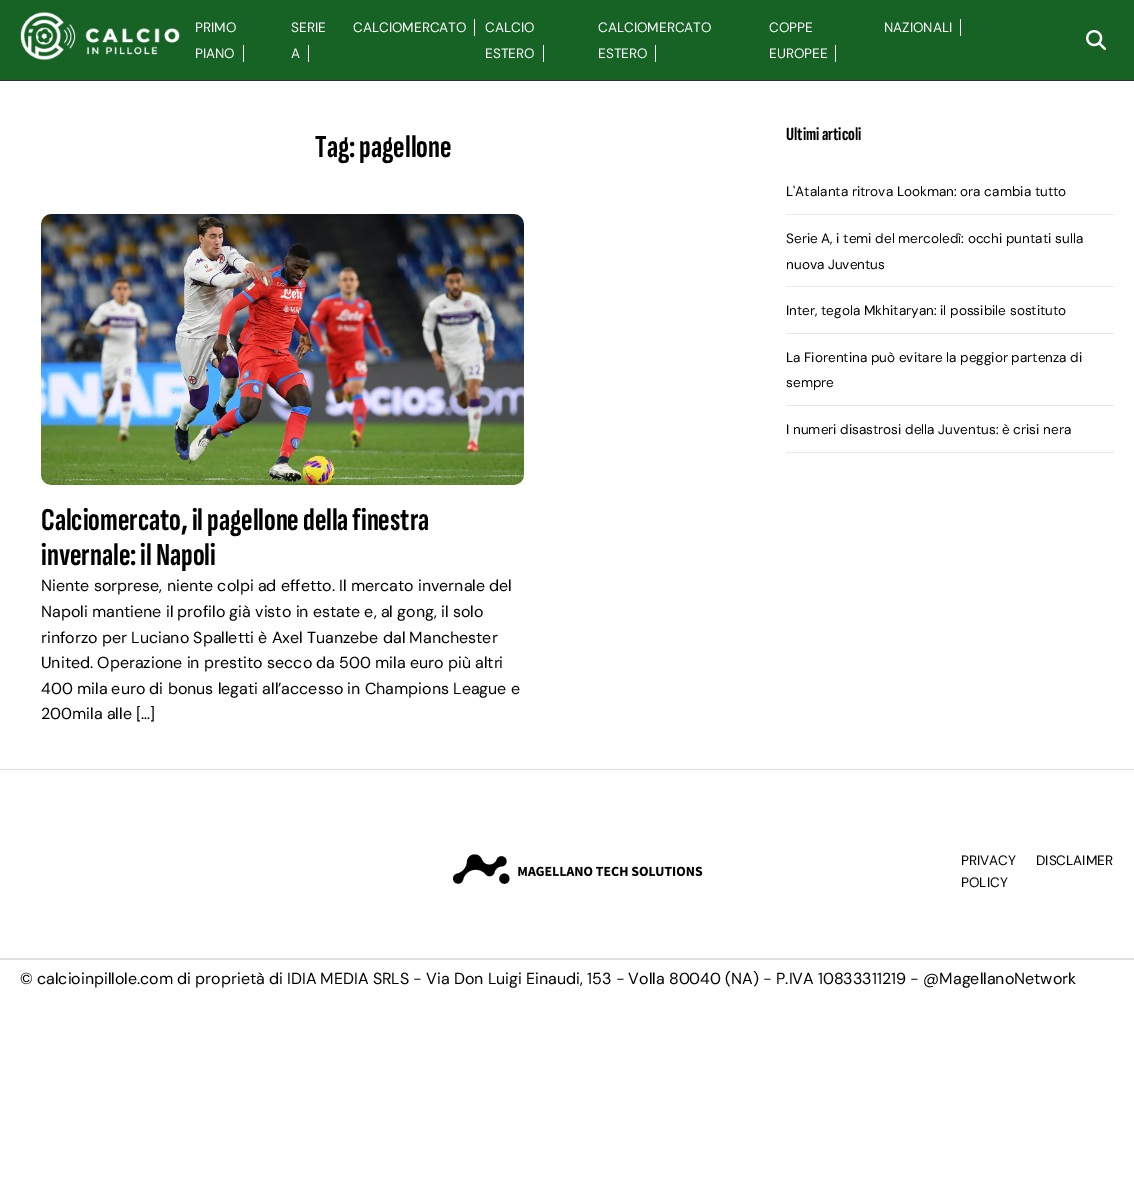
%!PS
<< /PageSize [1134 1185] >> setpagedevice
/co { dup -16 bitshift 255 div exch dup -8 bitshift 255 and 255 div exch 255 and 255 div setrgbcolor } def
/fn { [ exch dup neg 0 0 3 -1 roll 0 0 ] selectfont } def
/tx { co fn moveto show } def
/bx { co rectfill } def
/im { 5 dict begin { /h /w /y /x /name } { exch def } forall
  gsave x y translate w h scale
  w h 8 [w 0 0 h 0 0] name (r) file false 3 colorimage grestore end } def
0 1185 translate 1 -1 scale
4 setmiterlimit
0 0 1134 1185 16#FFFFFF bx
0 0 1134 80 16#176326 bx
0 80 1134 1 16#2B3337 bx
(media/1.raw) 20 12 160 49 im
243 45 1 17 16#FFFFFF bx
308 45 1 17 16#FFFFFF bx
474 19 1 17 16#FFFFFF bx
543 45 1 17 16#FFFFFF bx
655 45 1 17 16#FFFFFF bx
835 45 1 17 16#FFFFFF bx
960 19 1 17 16#FFFFFF bx
(media/2.raw) 1086 30 20 20 im
(media/3.raw) 41 214 483 271 im
786 214 328 1 16#E9E9E9 bx
786 286 328 1 16#E9E9E9 bx
786 333 328 1 16#E9E9E9 bx
786 405 328 1 16#E9E9E9 bx
786 452 328 1 16#E9E9E9 bx
0 769 1134 1 16#E0E0E0 bx
0 958 1134 2 16#E0E0E0 bx
(media/4.raw) 453 854 250 30 im
(PRIMO) 195 32 /DMSans-Regular 13.6 16#FFFFFF tx
(PIANO) 195 58 /DMSans-Regular 13.6 16#FFFFFF tx
(SERIE) 291 32 /DMSans-Regular 13.6 16#FFFFFF tx
(A) 291 58 /DMSans-Regular 13.6 16#FFFFFF tx
(CALCIOMERCATO) 353 32 /DMSans-Regular 13.6 16#FFFFFF tx
(CALCIO) 485 32 /DMSans-Regular 13.6 16#FFFFFF tx
(ESTERO) 485 58 /DMSans-Regular 13.6 16#FFFFFF tx
(CALCIOMERCATO) 598 32 /DMSans-Regular 13.6 16#FFFFFF tx
(ESTERO) 598 58 /DMSans-Regular 13.6 16#FFFFFF tx
(COPPE) 769 32 /DMSans-Regular 13.6 16#FFFFFF tx
(EUROPEE) 769 58 /DMSans-Regular 13.6 16#FFFFFF tx
(NAZIONALI) 884 32 /DMSans-Regular 13.6 16#FFFFFF tx
(Tag: pagellone) 315 157 /SofiaSansExtraCondensed-Bold 32 16#000000 tx
(Calciomercato, il pagellone della finestra) 41 530 /SofiaSansExtraCondensed-Bold 32 16#000000 tx
(invernale: il Napoli) 41 565 /SofiaSansExtraCondensed-Bold 32 16#000000 tx
(Niente sorprese, niente colpi ad effetto. Il mercato invernale del) 41 591 /DMSans-Regular 16 16#000000 tx
(Napoli mantiene il profilo già visto in estate e, al gong, il solo) 41 617 /DMSans-Regular 16 16#000000 tx
(rinforzo per Luciano Spalletti è Axel Tuanzebe dal Manchester) 41 643 /DMSans-Regular 16 16#000000 tx
(United. Operazione in prestito secco da 500 mila euro più altri) 41 668 /DMSans-Regular 16 16#000000 tx
(400 mila euro di bonus legati all’accesso in Champions League e) 41 694 /DMSans-Regular 16 16#000000 tx
(200mila alle […]) 41 719 /DMSans-Regular 16 16#000000 tx
(Ultimi articoli) 786 140 /SofiaSansExtraCondensed-Bold 18.5 16#000000 tx
(L'Atalanta ritrova Lookman: ora cambia tutto) 786 196 /DMSans-Regular 13.6 16#000000 tx
(Serie A, i temi del mercoledì: occhi puntati sulla) 786 243 /DMSans-Regular 13.6 16#000000 tx
(nuova Juventus) 786 269 /DMSans-Regular 13.6 16#000000 tx
(Inter, tegola Mkhitaryan: il possibile sostituto) 786 315 /DMSans-Regular 13.6 16#000000 tx
(La Fiorentina può evitare la peggior partenza di) 786 362 /DMSans-Regular 13.6 16#000000 tx
(sempre) 786 387 /DMSans-Regular 13.6 16#000000 tx
(I numeri disastrosi della Juventus: è crisi nera) 786 434 /DMSans-Regular 13.6 16#000000 tx
(PRIVACY) 961 865 /DMSans-Regular 13.6 16#000000 tx
(POLICY) 961 887 /DMSans-Regular 13.6 16#000000 tx
(DISCLAIMER) 1036 865 /DMSans-Regular 13.6 16#000000 tx
(© calcioinpillole.com di proprietà di IDIA MEDIA SRLS - Via Don Luigi Einaudi, 153 - Volla 80040 \(NA\) - P.IVA 10833311219 - @MagellanoNetwork) 20 984 /DMSans-Regular 16 16#000000 tx
showpage
